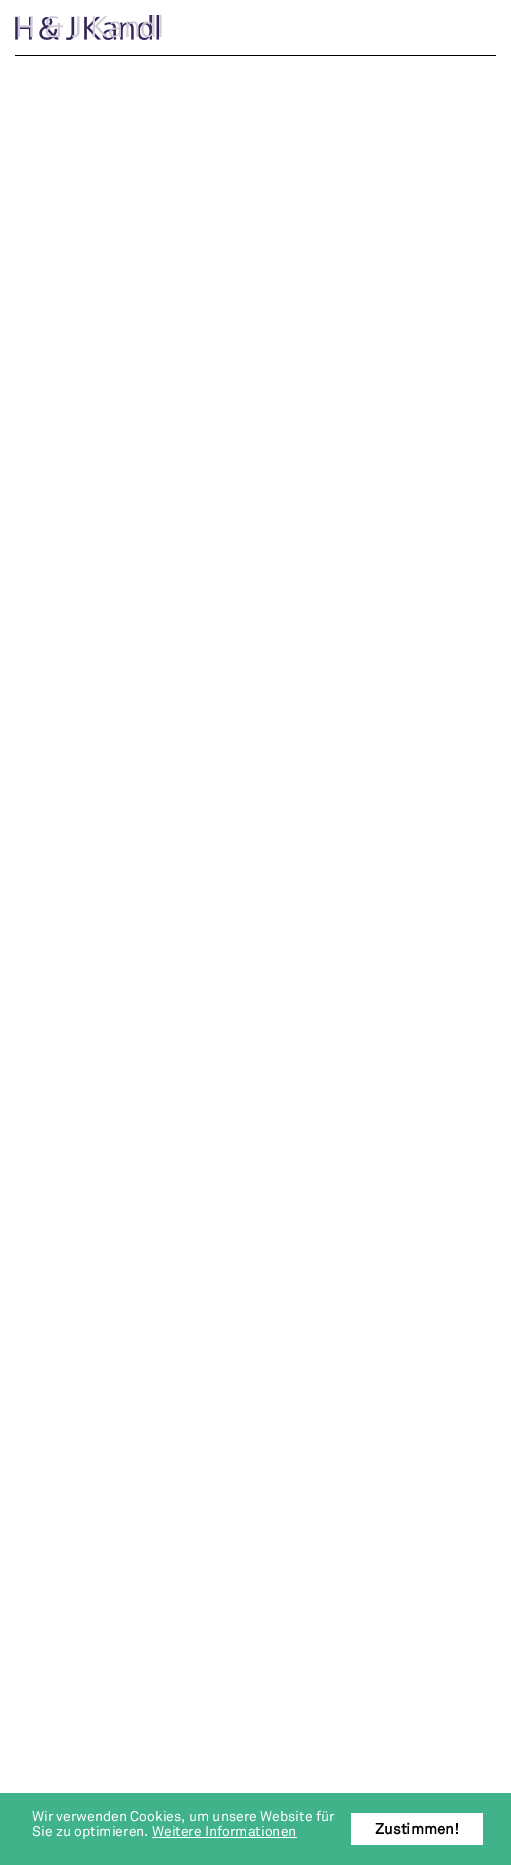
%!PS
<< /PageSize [511 1865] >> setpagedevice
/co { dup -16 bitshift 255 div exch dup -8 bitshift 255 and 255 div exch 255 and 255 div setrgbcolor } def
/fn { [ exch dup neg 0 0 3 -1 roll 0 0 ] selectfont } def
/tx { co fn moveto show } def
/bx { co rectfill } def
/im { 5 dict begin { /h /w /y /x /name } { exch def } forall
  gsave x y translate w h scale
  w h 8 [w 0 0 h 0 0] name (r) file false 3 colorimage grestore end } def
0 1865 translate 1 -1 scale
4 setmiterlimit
0 0 511 1865 16#FFFFFF bx
15 55 481 1 16#000000 bx
(media/1.raw) 15 15 144 25 im
0 1793 511 72 16#40B38B bx
152 1837 145 1 16#FFFFFF bx
351 1813 132 32 16#FFFFFF bx
(H & J Kandl) 15 37 /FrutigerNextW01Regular-Regular 31 16#D0CCD9 tx
(Wir verwenden Cookies, um unsere Website für) 32 1821 /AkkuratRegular-Regular 14 16#FFFFFF tx
(Sie zu optimieren. Weitere Informationen) 32 1836 /AkkuratRegular-Regular 14 16#FFFFFF tx
(Zustimmen!) 375 1834 /AkkuratRegular-Bold 15 16#000000 tx
showpage
